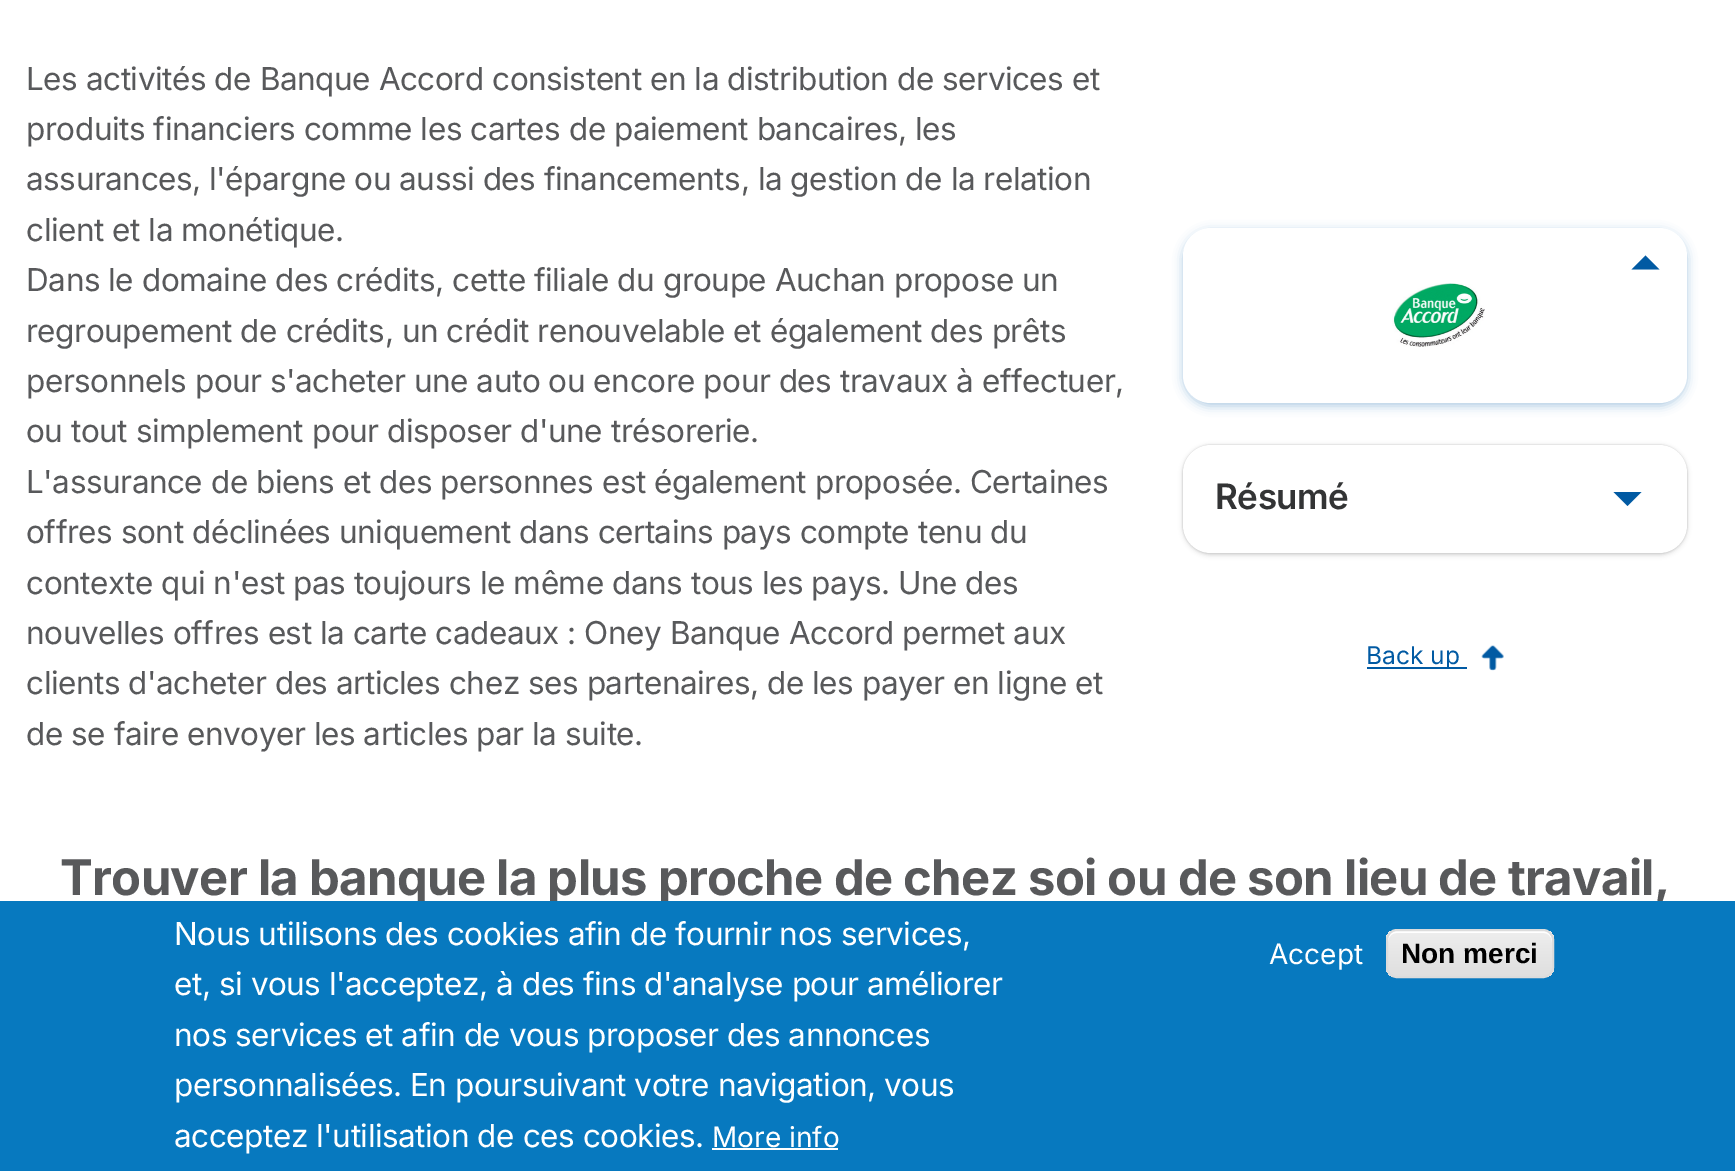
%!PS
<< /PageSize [1735 1171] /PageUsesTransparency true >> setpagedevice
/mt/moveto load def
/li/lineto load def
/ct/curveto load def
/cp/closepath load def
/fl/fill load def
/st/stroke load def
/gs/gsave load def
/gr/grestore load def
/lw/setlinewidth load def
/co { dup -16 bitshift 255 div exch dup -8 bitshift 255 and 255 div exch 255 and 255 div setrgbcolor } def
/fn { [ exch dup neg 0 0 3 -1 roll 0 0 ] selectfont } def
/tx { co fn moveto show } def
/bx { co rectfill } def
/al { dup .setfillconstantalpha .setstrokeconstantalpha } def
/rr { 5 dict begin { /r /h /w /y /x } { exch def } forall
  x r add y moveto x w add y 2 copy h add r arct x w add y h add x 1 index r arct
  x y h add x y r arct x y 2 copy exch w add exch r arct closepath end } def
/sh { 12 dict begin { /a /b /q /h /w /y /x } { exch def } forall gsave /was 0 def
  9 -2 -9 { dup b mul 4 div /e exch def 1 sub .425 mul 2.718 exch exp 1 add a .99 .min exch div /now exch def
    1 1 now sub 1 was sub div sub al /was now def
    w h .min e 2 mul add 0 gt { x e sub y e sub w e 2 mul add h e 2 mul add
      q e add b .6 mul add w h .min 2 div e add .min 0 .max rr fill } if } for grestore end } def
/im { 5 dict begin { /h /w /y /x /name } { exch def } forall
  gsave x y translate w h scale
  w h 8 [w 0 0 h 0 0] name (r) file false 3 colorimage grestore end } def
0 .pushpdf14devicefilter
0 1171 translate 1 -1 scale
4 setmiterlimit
0 0 1735 1171 16#FFFFFF bx
16#015AA3 co
1183 231 504 175 28 5 .32 sh
16#FFFFFF co
1183 228 504 175 28 rr fl
16#015AA3 co
1659.5 269.5 mt 1631.5 269.5 li 1645.5 255.5 li cp fl
(media/1.raw) 1392 283 93 64 im
16#000000 co
1183 446 504 109 28 2.5 .16 sh
1183 445 504 108 28 1 .17 sh
16#FFFFFF co
1183 445 504 108 28 rr fl
16#015AA3 co
1613.5 492 mt 1641.5 492 li 1627.5 506 li cp fl
1367 667 100 2 16#015AA3 bx
(media/2.raw) 1481 645 23 26 im
/Inter-Regular 31.5 fn
16#58595B co
26 90 mt -.45 0 (Les activités de Banque Accord consistent en la distribution de services et) ashow
26 140 mt -.45 0 (produits financiers comme les cartes de paiement bancaires, les) ashow
26 190 mt -.45 0 (assurances, l'épargne ou aussi des financements, la gestion de la relation) ashow
26 241 mt -.45 0 (client et la monétique.) ashow
26 291 mt -.45 0 (Dans le domaine des crédits, cette filiale du groupe Auchan propose un) ashow
26 342 mt -.45 0 (regroupement de crédits, un crédit renouvelable et également des prêts) ashow
26 392 mt -.45 0 (personnels pour s'acheter une auto ou encore pour des travaux à effectuer,) ashow
26 442 mt -.45 0 (ou tout simplement pour disposer d'une trésorerie.) ashow
26 493 mt -.45 0 (L'assurance de biens et des personnes est également proposée. Certaines) ashow
26 543 mt -.45 0 (offres sont déclinées uniquement dans certains pays compte tenu du) ashow
26 594 mt -.45 0 (contexte qui n'est pas toujours le même dans tous les pays. Une des) ashow
26 644 mt -.45 0 (nouvelles offres est la carte cadeaux : Oney Banque Accord permet aux) ashow
26 694 mt -.45 0 (clients d'acheter des articles chez ses partenaires, de les payer en ligne et) ashow
26 745 mt -.45 0 (de se faire envoyer les articles par la suite.) ashow
/Inter-SemiBold 35 fn
16#333435 co
1215 509 mt -.5 0 (Résumé) ashow
(Back up) 1366 664 /Inter-Regular 24.5 16#015AA3 tx
/Inter-Bold 49 fn
16#58595B co
60 895 mt -.7 0 (Trouver la banque la plus proche de chez soi ou de son lieu de travail,) ashow
0 901 1735 270 16#0779BF bx
/Inter-Regular 31.5 fn
16#FFFFFF co
174 945 mt -.45 0 (Nous utilisons des cookies afin de fournir nos services,) ashow
174 995 mt -.45 0 (et, si vous l'acceptez, à des fins d'analyse pour améliorer) ashow
174 1046 mt -.45 0 (nos services et afin de vous proposer des annonces) ashow
174 1096 mt -.45 0 (personnalisées. En poursuivant votre navigation, vous) ashow
174 1147 mt -.45 0 (acceptez l'utilisation de ces cookies.) ashow
(More info) 712 1147 /Inter-Regular 28 16#FFFFFF tx
712 1148 126 2 16#FFFFFF bx
(Accept) 1269 964 /Inter-Regular 28 16#FFFFFF tx
gs
1386 929 168 49 11 rr clip newpath
gs 1386 931 mt 1554 931 li 1554 977 li 1386 977 li cp clip newpath
<< /ShadingType 2 /ColorSpace /DeviceRGB /Coords [1470 931 1470 977] /Extend [true true] /Function << /FunctionType 3 /Domain [0 1] /Functions [<< /FunctionType 2 /Domain [0 1] /C0 [.929 .929 .929] /C1 [.929 .929 .929] /N 1 >> << /FunctionType 2 /Domain [0 1] /C0 [.929 .929 .929] /C1 [.875 .875 .875] /N 1 >>] /Bounds [.05] /Encode [0 1 0 1] >> >> shfill gr
gr
1396 933 mt 1544 933 li 1548 933 1552 937 1552 942 ct 1552 940 li 1552 935 1548 931 1543 931 ct 1397 931 li 1392 931 1388 935 1388 940 ct 1388 942 li 1388 937 1392 933 1396 933 ct cp fl
16#DCDCDC co
2 lw
1387 930 166 47 10 rr st
(Non merci) 1401 963 /LiberationSans-Bold 28 16#000000 tx
.poppdf14devicefilter showpage
